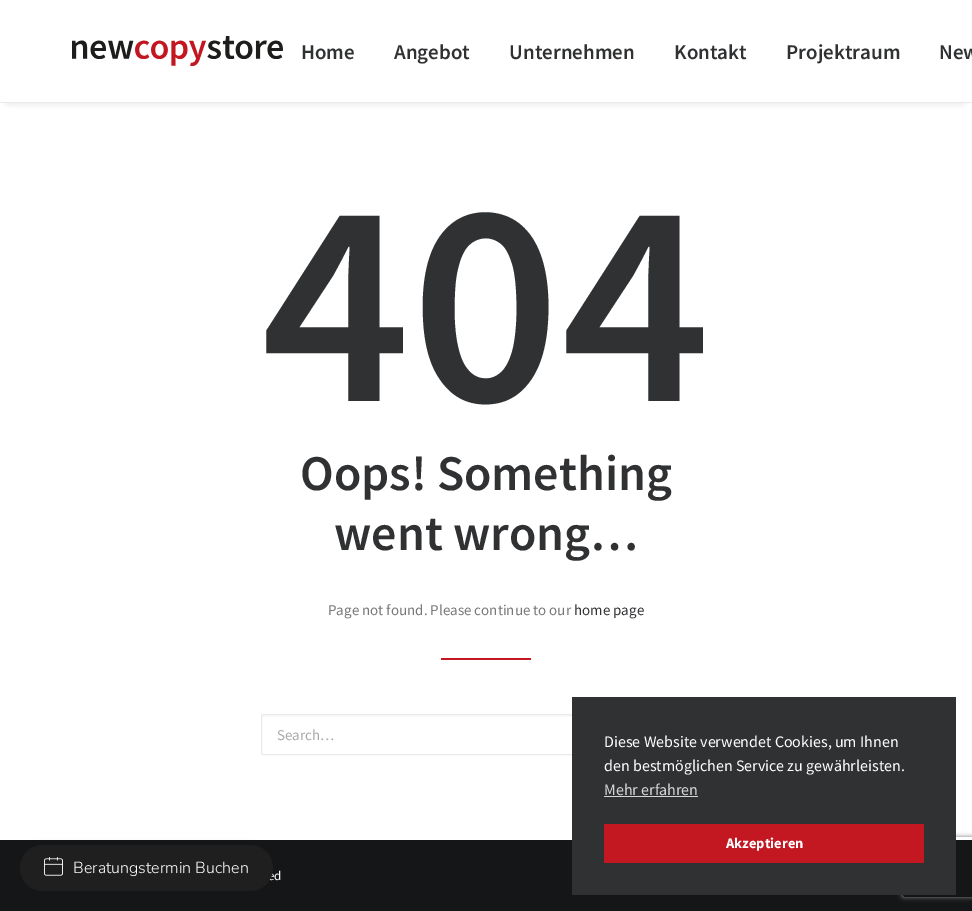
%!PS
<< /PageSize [972 911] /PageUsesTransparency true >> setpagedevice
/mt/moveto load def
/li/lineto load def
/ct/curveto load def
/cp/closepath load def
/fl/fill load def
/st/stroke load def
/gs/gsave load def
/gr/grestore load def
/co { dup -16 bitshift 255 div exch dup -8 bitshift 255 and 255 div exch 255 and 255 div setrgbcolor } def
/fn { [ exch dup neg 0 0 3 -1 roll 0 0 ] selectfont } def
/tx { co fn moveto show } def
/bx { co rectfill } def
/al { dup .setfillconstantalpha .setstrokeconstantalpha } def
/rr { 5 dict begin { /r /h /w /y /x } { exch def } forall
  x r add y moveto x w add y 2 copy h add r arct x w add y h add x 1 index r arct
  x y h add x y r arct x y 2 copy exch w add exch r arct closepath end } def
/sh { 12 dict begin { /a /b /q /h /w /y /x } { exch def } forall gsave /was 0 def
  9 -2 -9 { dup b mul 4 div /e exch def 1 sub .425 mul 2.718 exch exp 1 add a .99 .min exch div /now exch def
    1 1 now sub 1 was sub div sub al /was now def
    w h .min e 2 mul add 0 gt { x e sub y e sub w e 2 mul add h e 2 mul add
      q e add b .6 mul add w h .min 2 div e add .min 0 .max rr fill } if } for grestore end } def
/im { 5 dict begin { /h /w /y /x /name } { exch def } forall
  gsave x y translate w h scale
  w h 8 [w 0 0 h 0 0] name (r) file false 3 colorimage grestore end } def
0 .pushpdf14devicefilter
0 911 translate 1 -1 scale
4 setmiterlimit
0 0 972 911 16#FFFFFF bx
16#000000 co
10 14 952 83 0 5 .6 sh
0 3 972 99 16#FFFFFF bx
0 102 972 1 16#EAEAEA bx
(media/1.raw) 72 36 211 30 im
441 658 90 2 16#C31722 bx
16#F9F9F9 co
263 717 mt 709 717 li 710 717 710 717 710 718 ct 710 717 710 715 709 715 ct 263 715 li 262 715 li 262 718 li 262 717 262 717 263 717 ct cp fl
16#EAEAEA co
261.5 714.5 449 40 1.5 rr st
0 840 972 71 16#141618 bx
gs
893 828 mt 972 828 li 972 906 li 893 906 li cp 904 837 mt 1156 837 li 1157 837 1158 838 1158 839 ct 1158 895 li 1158 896 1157 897 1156 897 ct 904 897 li 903 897 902 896 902 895 ct 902 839 li 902 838 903 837 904 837 ct cp eoclip newpath
16#808080 co
902 837 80 60 2 2.5 1 sh
gr
572 697 384 198 16#303133 bx
604 796 94 1 16#D6D6D6 bx
604 824 320 39 16#C31722 bx
16#000000 co
18 843 257 50 25 2.5 .1 sh
(Home) 301 59 /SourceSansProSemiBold-SemiBold 21 16#303133 tx
(Angebot) 394 59 /SourceSansProSemiBold-SemiBold 21 16#303133 tx
(Unternehmen) 509 59 /SourceSansProSemiBold-SemiBold 21 16#303133 tx
(Kontakt) 674 59 /SourceSansProSemiBold-SemiBold 21 16#303133 tx
(Projektraum) 786 59 /SourceSansProSemiBold-SemiBold 21 16#303133 tx
(New) 939 59 /SourceSansProSemiBold-SemiBold 21 16#303133 tx
(404) 261 401 /SourceSansProSemiBold-SemiBold 292 16#303133 tx
(Oops! Something) 300 490 /SourceSansProSemiBold-SemiBold 50 16#303133 tx
(went wrong…) 334 550 /SourceSansProSemiBold-SemiBold 50 16#303133 tx
(Page not found. Please continue to our) 328 615 /SourceSansPro-Regular 15 16#777777 tx
(home page) 574 615 /SourceSansPro-Regular 15 16#303133 tx
(Search…) 277 740 /SourceSansPro-Regular 15 16#A9A9A9 tx
(ed) 268 880 /SourceSansPro-Regular 13 16#FFFFFF tx
(Diese Website verwendet Cookies, um Ihnen) 604 747 /SourceSansPro-Regular 16 16#FFFFFF tx
(den bestmöglichen Service zu gewährleisten.) 604 771 /SourceSansPro-Regular 16 16#FFFFFF tx
(Mehr erfahren) 604 795 /SourceSansPro-Regular 16 16#D6D6D6 tx
(Akzeptieren) 726 848 /SourceSansPro-Bold 14.5 16#FFFFFF tx
16#1F1F1F co
20 845 253 46 23 rr fl
(media/2.raw) 44 857 19 19 im
(Beratungstermin Buchen) 73 873 /Nunito-Light 16 16#FFFFFF tx
.poppdf14devicefilter showpage
